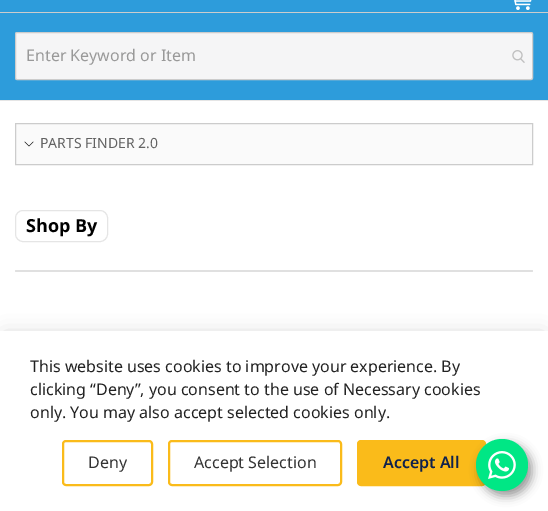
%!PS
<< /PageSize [548 511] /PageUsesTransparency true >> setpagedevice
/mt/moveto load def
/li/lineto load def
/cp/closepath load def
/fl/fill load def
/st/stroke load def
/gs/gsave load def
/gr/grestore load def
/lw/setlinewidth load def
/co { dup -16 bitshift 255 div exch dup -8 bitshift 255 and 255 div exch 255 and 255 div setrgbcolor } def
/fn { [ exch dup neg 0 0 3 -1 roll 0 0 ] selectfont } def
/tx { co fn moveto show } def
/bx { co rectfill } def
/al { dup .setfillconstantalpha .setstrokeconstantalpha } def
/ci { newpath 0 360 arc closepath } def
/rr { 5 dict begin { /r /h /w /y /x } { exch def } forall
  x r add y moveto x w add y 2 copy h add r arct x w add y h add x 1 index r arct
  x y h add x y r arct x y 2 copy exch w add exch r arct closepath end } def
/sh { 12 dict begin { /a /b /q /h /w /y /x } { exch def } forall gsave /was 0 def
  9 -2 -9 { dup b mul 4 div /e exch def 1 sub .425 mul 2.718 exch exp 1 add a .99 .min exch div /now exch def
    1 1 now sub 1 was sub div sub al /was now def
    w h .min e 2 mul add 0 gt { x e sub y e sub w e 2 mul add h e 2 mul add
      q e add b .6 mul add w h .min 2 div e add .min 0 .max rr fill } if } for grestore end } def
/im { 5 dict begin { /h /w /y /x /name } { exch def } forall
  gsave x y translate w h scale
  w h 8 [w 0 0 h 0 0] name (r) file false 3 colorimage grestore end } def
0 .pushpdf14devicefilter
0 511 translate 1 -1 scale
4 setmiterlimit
0 0 548 511 16#FFFFFF bx
0 0 548 100 16#2D9CDB bx
0 100 548 1 16#E5E5E5 bx
(media/1.raw) 514 0 18 10 im
0 12 548 1 16#CCCCCC bx
16#F5F5F6 co
15.5 32.5 517 47 1.5 rr gs fl gr
16#CCCCCC co
st
(media/2.raw) 512 50 13 13 im
16#FAFAFA co
15.5 123.5 mt 532.5 123.5 li 532.5 164.5 li 15.5 164.5 li cp gs fl gr
16#CCCCCC co
st
(media/3.raw) 24 141 10 6 im
16#E0E0E0 co
15 270 518 2 1 rr fl
16#E5E5E5 co
15.5 210.5 92 31 7.5 rr st
16#000000 co
5 336 538 170 0 10 .2 sh
0 331 548 180 16#FFFFFF bx
16#FABB1A co
2 lw
63 441 89 44 3 rr st
169 441 172 44 3 rr st
358 441 127 44 3 rr gs fl gr
st
16#000000 co
480 444 52 52 26 5 .4 sh
16#00E785 co
502 465 26 ci fl
(media/4.raw) 488 451 28 28 im
(Enter Keyword or Item) 26 61 /NotoSans-Regular 16 16#999999 tx
(PARTS FINDER 2.0) 40 148 /NotoSans-Regular 14 16#636363 tx
(Shop By) 26 232 /NotoSans-Bold 18 16#000000 tx
(This website uses cookies to improve your experience. By) 30 372 /NotoSans-Regular 16 16#222222 tx
(clicking “Deny”, you consent to the use of Necessary cookies) 30 395 /NotoSans-Regular 16 16#222222 tx
(only. You may also accept selected cookies only.) 30 418 /NotoSans-Regular 16 16#222222 tx
(Deny) 88 468 /NotoSans-Regular 16 16#333333 tx
(Accept Selection) 194 468 /NotoSans-Regular 16 16#333333 tx
(Accept All) 383 468 /NotoSans-SemiBold 16 16#0F224C tx
.poppdf14devicefilter showpage
